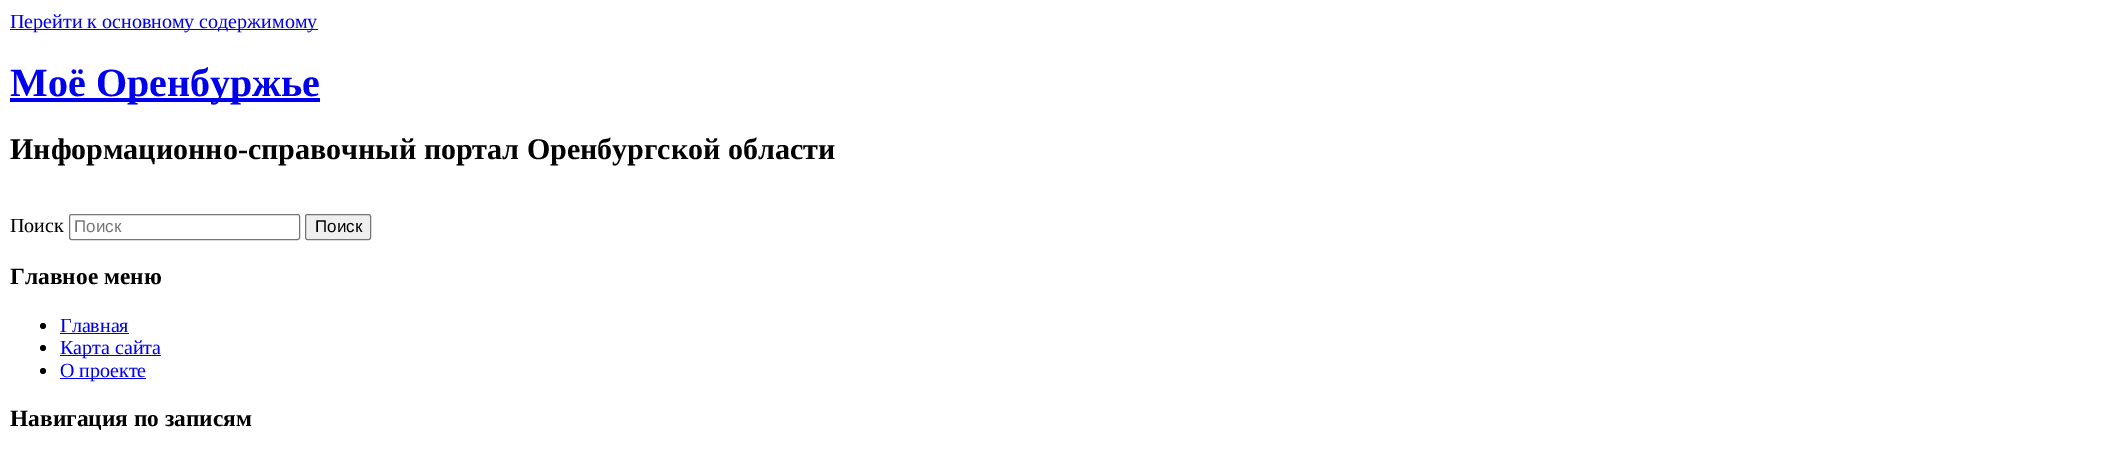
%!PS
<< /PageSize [2128 449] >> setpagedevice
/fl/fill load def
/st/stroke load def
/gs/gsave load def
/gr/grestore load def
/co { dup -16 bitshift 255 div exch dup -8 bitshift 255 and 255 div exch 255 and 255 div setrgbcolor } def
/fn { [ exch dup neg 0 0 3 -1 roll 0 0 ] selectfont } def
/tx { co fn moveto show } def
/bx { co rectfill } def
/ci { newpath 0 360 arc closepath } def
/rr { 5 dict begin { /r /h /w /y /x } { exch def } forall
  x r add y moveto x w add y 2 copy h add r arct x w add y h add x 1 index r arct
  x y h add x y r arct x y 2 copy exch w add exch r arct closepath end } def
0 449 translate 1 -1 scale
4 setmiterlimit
0 0 2128 449 16#FFFFFF bx
10 29 308 1 16#0000EE bx
10 98 310 4 16#0000EE bx
16#767676 co
69.5 214.5 230 25 2 rr st
16#EFEFEF co
305.5 214.5 65 25 2 rr gs fl gr
16#767676 co
st
16#000000 co
43 326 3 ci fl
60 333 69 1 16#0000EE bx
16#000000 co
43 348 3 ci fl
60 355 101 1 16#0000EE bx
16#000000 co
43 371 3 ci fl
60 378 86 1 16#0000EE bx
(Перейти к основному содержимому) 10 28 /LiberationSerif-Regular 20 16#0000EE tx
(Моё Оренбуржье) 10 96 /LiberationSerif-Bold 40 16#0000EE tx
(Информационно-справочный портал Оренбургской области) 10 159 /LiberationSerif-Bold 30 16#000000 tx
(Поиск) 10 232 /LiberationSerif-Regular 20 16#000000 tx
(Поиск) 74 232 /LiberationSans-Regular 17 16#757575 tx
(Поиск) 315 232 /LiberationSans-Regular 17 16#000000 tx
(Главное меню) 10 284 /LiberationSerif-Bold 23.4 16#000000 tx
(Главная) 60 332 /LiberationSerif-Regular 20 16#0000EE tx
(Карта сайта) 60 354 /LiberationSerif-Regular 20 16#0000EE tx
(О проекте) 60 377 /LiberationSerif-Regular 20 16#0000EE tx
(Навигация по записям) 10 426 /LiberationSerif-Bold 23.4 16#000000 tx
showpage
